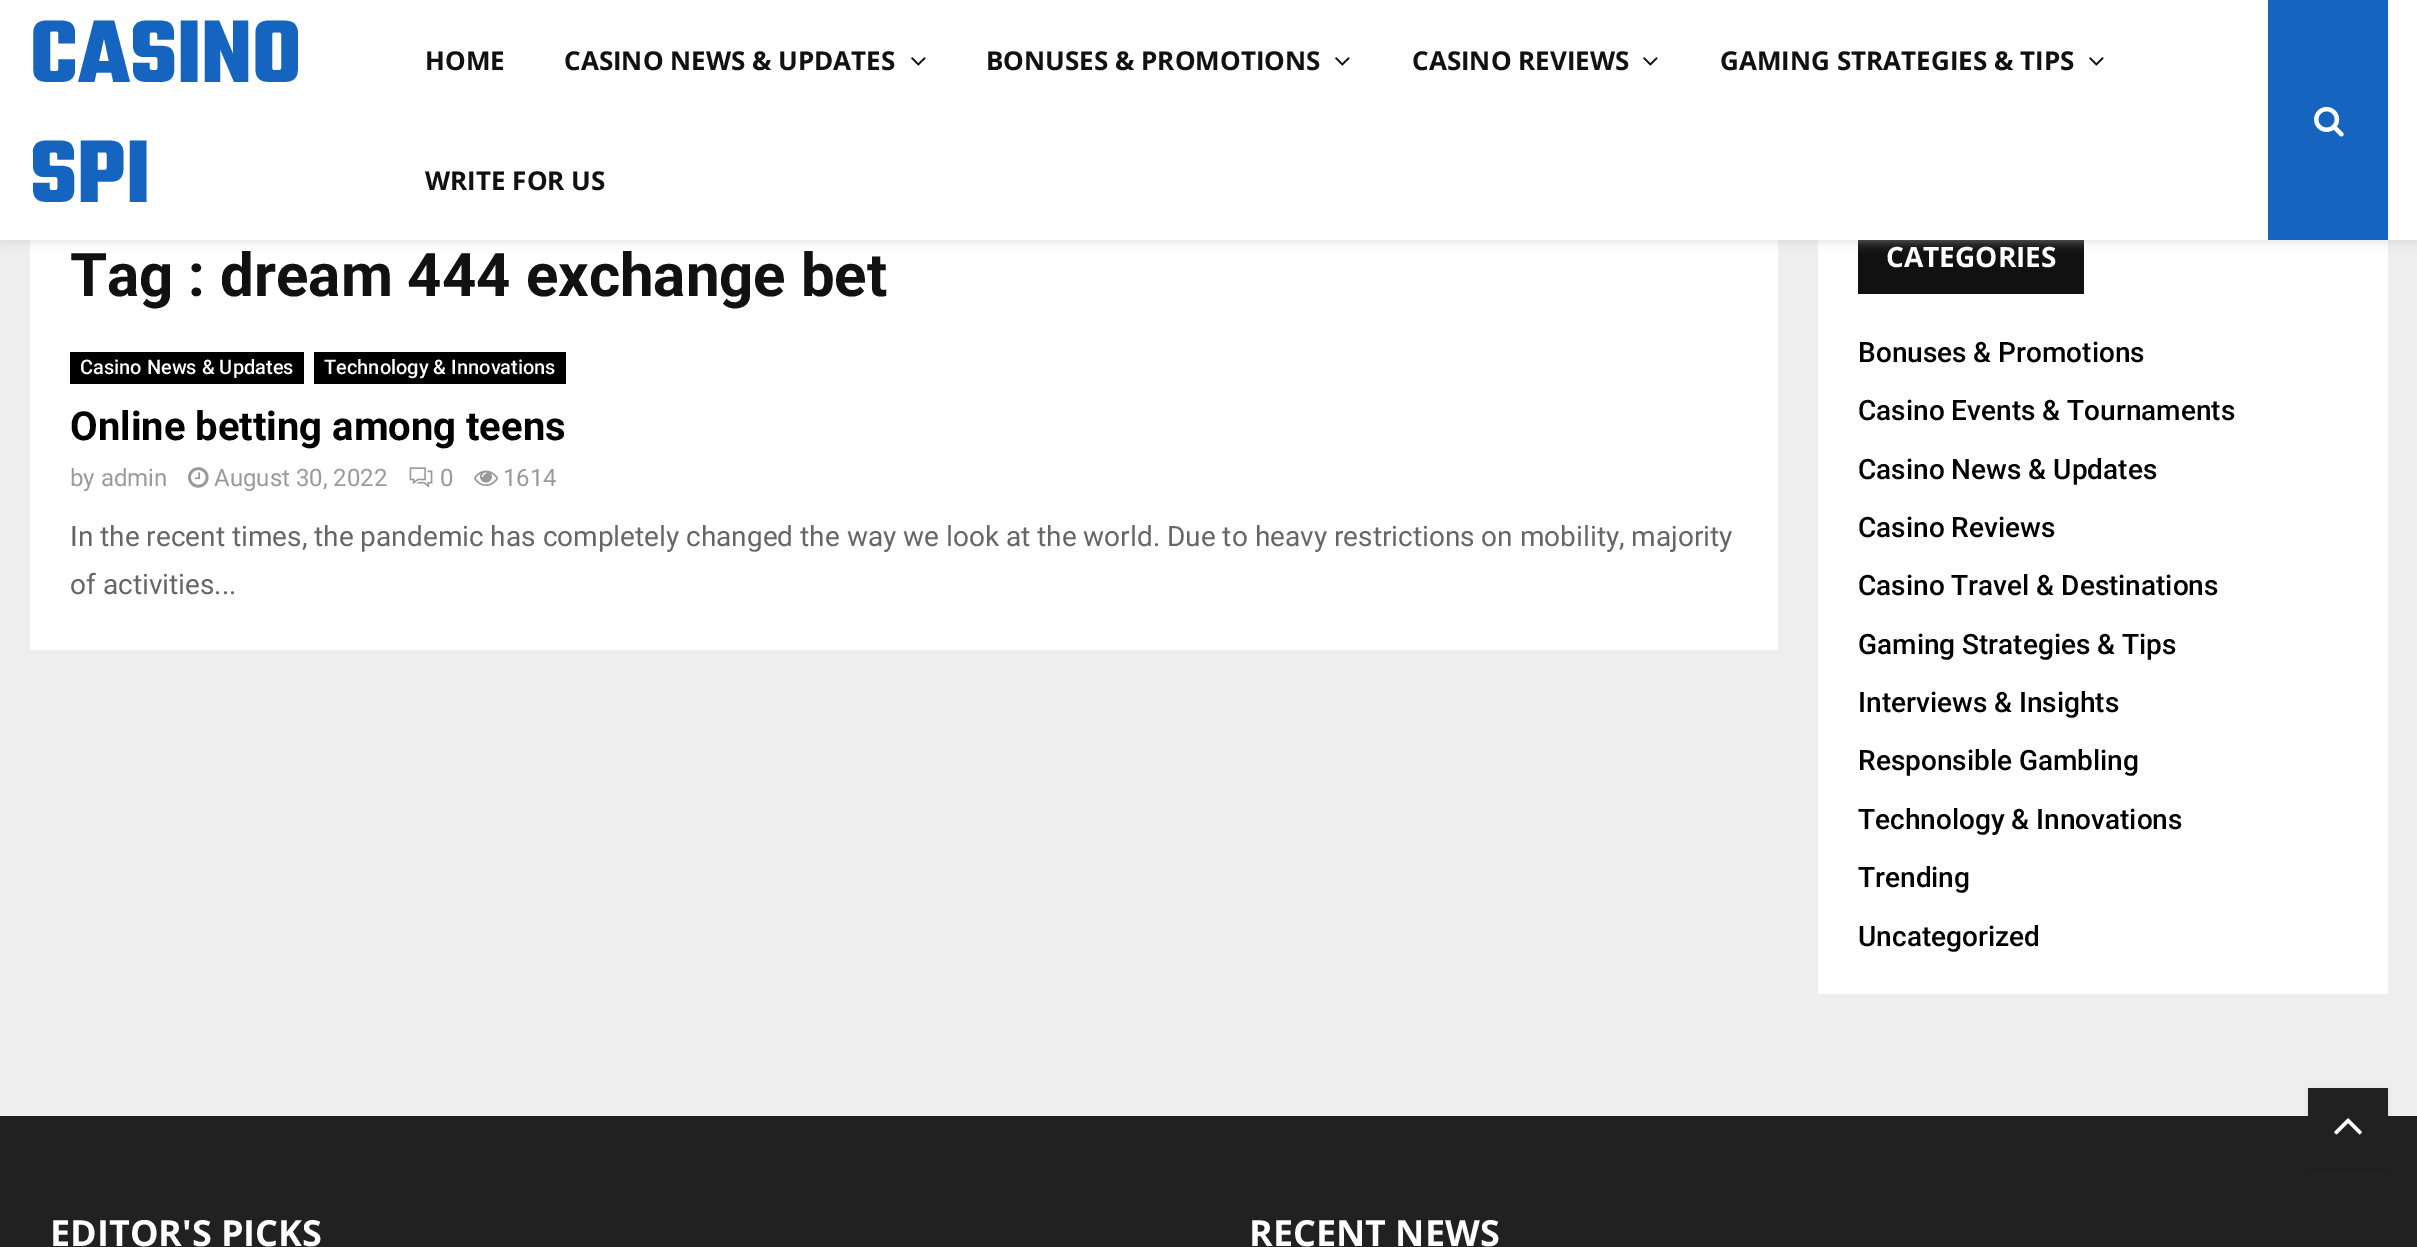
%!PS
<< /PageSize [2417 1247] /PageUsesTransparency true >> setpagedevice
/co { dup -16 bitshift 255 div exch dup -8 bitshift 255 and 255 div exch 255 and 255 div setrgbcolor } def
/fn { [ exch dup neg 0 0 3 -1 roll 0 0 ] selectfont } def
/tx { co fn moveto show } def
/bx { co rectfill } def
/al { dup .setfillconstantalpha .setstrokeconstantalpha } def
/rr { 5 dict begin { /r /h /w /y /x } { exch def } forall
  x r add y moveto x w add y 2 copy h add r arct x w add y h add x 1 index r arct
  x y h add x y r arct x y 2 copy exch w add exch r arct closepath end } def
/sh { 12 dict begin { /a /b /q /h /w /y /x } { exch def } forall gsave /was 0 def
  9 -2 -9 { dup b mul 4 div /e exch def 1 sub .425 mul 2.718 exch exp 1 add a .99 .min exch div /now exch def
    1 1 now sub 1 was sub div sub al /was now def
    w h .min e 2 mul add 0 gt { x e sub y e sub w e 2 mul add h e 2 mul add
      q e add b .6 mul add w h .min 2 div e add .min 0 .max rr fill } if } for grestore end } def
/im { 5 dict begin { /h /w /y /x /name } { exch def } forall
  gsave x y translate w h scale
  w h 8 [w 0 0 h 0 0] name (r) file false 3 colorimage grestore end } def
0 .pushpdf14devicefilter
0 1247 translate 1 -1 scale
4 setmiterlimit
0 0 2417 1247 16#EEEEEE bx
30 240 1748 410 16#FFFFFF bx
1818 240 570 754 16#FFFFFF bx
1858 240 226 54 16#111111 bx
16#BEBEBE co
0 2 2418 240 0 5 .46 sh
0 0 2417 240 16#FFFFFF bx
(media/1.raw) 911 57 15 9 im
(media/1.raw) 1335 57 15 9 im
(media/1.raw) 1643 57 15 9 im
(media/1.raw) 2089 57 15 9 im
2268 0 120 240 16#1565C0 bx
(media/2.raw) 2314 106 30 31 im
70 352 234 32 16#000000 bx
314 352 252 32 16#000000 bx
(media/3.raw) 188 467 21 21 im
(media/4.raw) 409 467 24 21 im
(media/5.raw) 474 470 24 16 im
0 1116 2417 131 16#212121 bx
16#000000 co
2308 1090 80 80 0 2 .1 sh
2308 1088 80 80 16#212121 bx
(media/6.raw) 2334 1118 28 17 im
(CASINO) 30 82 /Teko-Bold 96 16#1565C0 tx
(SPI) 30 202 /Teko-Bold 96 16#1565C0 tx
(HOME) 425 70 /OpenSans-Bold 26 16#111111 tx
(CASINO NEWS & UPDATES) 564 70 /OpenSans-Bold 26 16#111111 tx
(BONUSES & PROMOTIONS) 986 70 /OpenSans-Bold 26 16#111111 tx
(CASINO REVIEWS) 1412 70 /OpenSans-Bold 26 16#111111 tx
(GAMING STRATEGIES & TIPS) 1720 70 /OpenSans-Bold 26 16#111111 tx
(WRITE FOR US) 425 190 /OpenSans-Bold 26 16#111111 tx
(Tag : dream 444 exchange bet) 70 296 /Roboto-Bold 60 16#111111 tx
(Casino News & Updates) 80 374 /Roboto-Medium 20 16#FFFFFF tx
(Technology & Innovations) 324 374 /Roboto-Medium 20 16#FFFFFF tx
(Online betting among teens) 70 440 /Roboto-Bold 40 16#000000 tx
(by admin) 70 486 /Roboto-Regular 24 16#999999 tx
(August 30, 2022) 214 486 /Roboto-Regular 24 16#999999 tx
(0) 440 486 /Roboto-Regular 24 16#999999 tx
(1614) 503 486 /Roboto-Regular 24 16#999999 tx
(In the recent times, the pandemic has completely changed the way we look at the world. Due to heavy restrictions on mobility, majority) 70 546 /Roboto-Regular 28 16#666666 tx
(of activities...) 70 594 /Roboto-Regular 28 16#666666 tx
(CATEGORIES) 1886 267 /OpenSans-Bold 28 16#FFFFFF tx
(Bonuses & Promotions) 1858 362 /Roboto-Medium 28 16#000000 tx
(Casino Events & Tournaments) 1858 420 /Roboto-Medium 28 16#000000 tx
(Casino News & Updates) 1858 479 /Roboto-Medium 28 16#000000 tx
(Casino Reviews) 1858 537 /Roboto-Medium 28 16#000000 tx
(Casino Travel & Destinations) 1858 595 /Roboto-Medium 28 16#000000 tx
(Gaming Strategies & Tips) 1858 654 /Roboto-Medium 28 16#000000 tx
(Interviews & Insights) 1858 712 /Roboto-Medium 28 16#000000 tx
(Responsible Gambling) 1858 770 /Roboto-Medium 28 16#000000 tx
(Technology & Innovations) 1858 829 /Roboto-Medium 28 16#000000 tx
(Trending) 1858 887 /Roboto-Medium 28 16#000000 tx
(Uncategorized) 1858 946 /Roboto-Medium 28 16#000000 tx
(EDITOR'S PICKS) 50 1246 /OpenSans-Bold 36 16#FFFFFF tx
(RECENT NEWS) 1249 1246 /OpenSans-Bold 36 16#FFFFFF tx
.poppdf14devicefilter showpage
